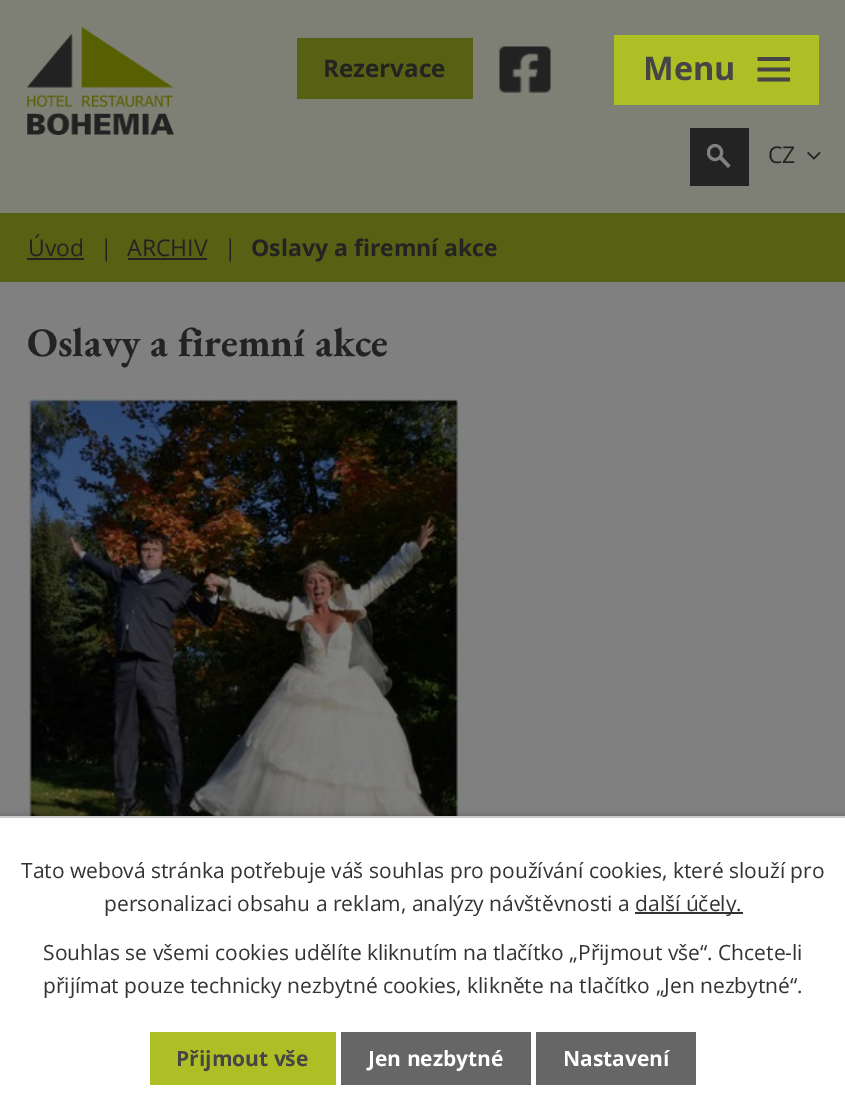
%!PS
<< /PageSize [845 1118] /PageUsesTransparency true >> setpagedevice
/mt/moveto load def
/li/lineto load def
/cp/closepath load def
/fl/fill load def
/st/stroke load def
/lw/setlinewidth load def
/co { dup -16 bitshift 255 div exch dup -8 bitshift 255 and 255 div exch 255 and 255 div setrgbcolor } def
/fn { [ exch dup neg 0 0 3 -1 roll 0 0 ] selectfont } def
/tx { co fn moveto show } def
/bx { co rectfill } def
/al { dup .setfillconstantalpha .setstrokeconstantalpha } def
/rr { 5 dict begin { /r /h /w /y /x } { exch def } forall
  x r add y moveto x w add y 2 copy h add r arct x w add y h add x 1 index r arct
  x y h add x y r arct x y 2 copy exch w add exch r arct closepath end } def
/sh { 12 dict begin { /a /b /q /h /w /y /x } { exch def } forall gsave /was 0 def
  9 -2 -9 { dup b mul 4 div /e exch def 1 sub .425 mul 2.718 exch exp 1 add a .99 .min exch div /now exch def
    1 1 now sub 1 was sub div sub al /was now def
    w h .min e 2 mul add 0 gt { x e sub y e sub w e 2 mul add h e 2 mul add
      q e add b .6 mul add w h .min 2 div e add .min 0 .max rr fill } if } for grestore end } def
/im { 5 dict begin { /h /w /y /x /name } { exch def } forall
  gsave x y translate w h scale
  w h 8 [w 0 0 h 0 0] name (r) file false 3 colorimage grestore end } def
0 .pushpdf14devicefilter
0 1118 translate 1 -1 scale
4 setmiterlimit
0 0 845 1118 16#808080 bx
0 0 845 213 16#7F8075 bx
614 35 205 70 16#ADBF25 bx
16#464545 co
757.5 81.5 mt 757.5 77.5 li 790 77.5 li 790 81.5 li cp 757.5 57 mt 790 57 li 790 61 li 757.5 61 li cp 757.5 71.5 mt 757.5 67.5 li 790 67.5 li 790 71.5 li cp fl
(media/1.raw) 27 27 147 108 im
297 38 176 61 16#576013 bx
(media/2.raw) 499 46 52 47 im
690 128 59 58 16#232323 bx
16#808080 co
3 lw
708.5 145.5 13 14 6.5 rr st
722 156.5 mt 730.5 165.5 li 728 168 li 719.5 159 li cp fl
(media/3.raw) 807 152 14 8 im
0 213 845 69 16#576013 bx
27 258 57 2 16#232323 bx
128 258 79 2 16#232323 bx
(media/4.raw) 28 399 431 417 im
16#000000 co
0 816 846 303 0 4 .2 sh
0 818 845 300 16#FFFFFF bx
0 816 845 2 16#CCCCCC bx
635 912 108 2 16#333333 bx
150 1032 186 53 16#ADBF25 bx
341 1032 190 53 16#666666 bx
536 1032 160 53 16#666666 bx
(Menu) 643 80 /OpenSans-Bold 32.5 16#464545 tx
(Rezervace) 323 77 /OpenSans-Bold 24.25 16#232323 tx
(CZ) 768 163 /OpenSans-Regular 23 16#232323 tx
(Úvod) 28 256 /OpenSans-Regular 23 16#232323 tx
(|) 100 256 /OpenSans-Regular 23 16#232323 tx
(ARCHIV) 127 256 /OpenSans-Regular 23 16#232323 tx
(|) 224 256 /OpenSans-Regular 23 16#232323 tx
(Oslavy a firemní akce) 251 256 /OpenSans-Bold 23 16#232323 tx
(Oslavy a firemní akce) 27 356 /EBGaramond-Bold 40.5 16#232323 tx
(Tato webová stránka potřebuje váš souhlas pro používání cookies, které slouží pro) 21 878 /OpenSans-Regular 21 16#333333 tx
(personalizaci obsahu a reklam, analýzy návštěvnosti a) 104 911 /OpenSans-Regular 21 16#333333 tx
(další účely.) 635 911 /OpenSans-Regular 21 16#333333 tx
(Souhlas se všemi cookies udělíte kliknutím na tlačítko „Přijmout vše“. Chcete-li) 43 960 /OpenSans-Regular 21 16#333333 tx
(přijímat pouze technicky nezbytné cookies, klikněte na tlačítko „Jen nezbytné“.) 43 993 /OpenSans-Regular 21 16#333333 tx
(Přijmout vše) 176 1066 /OpenSans-Bold 21 16#464545 tx
(Jen nezbytné) 368 1066 /OpenSans-Bold 21 16#FFFFFF tx
(Nastavení) 563 1066 /OpenSans-Bold 21 16#FFFFFF tx
.poppdf14devicefilter showpage
